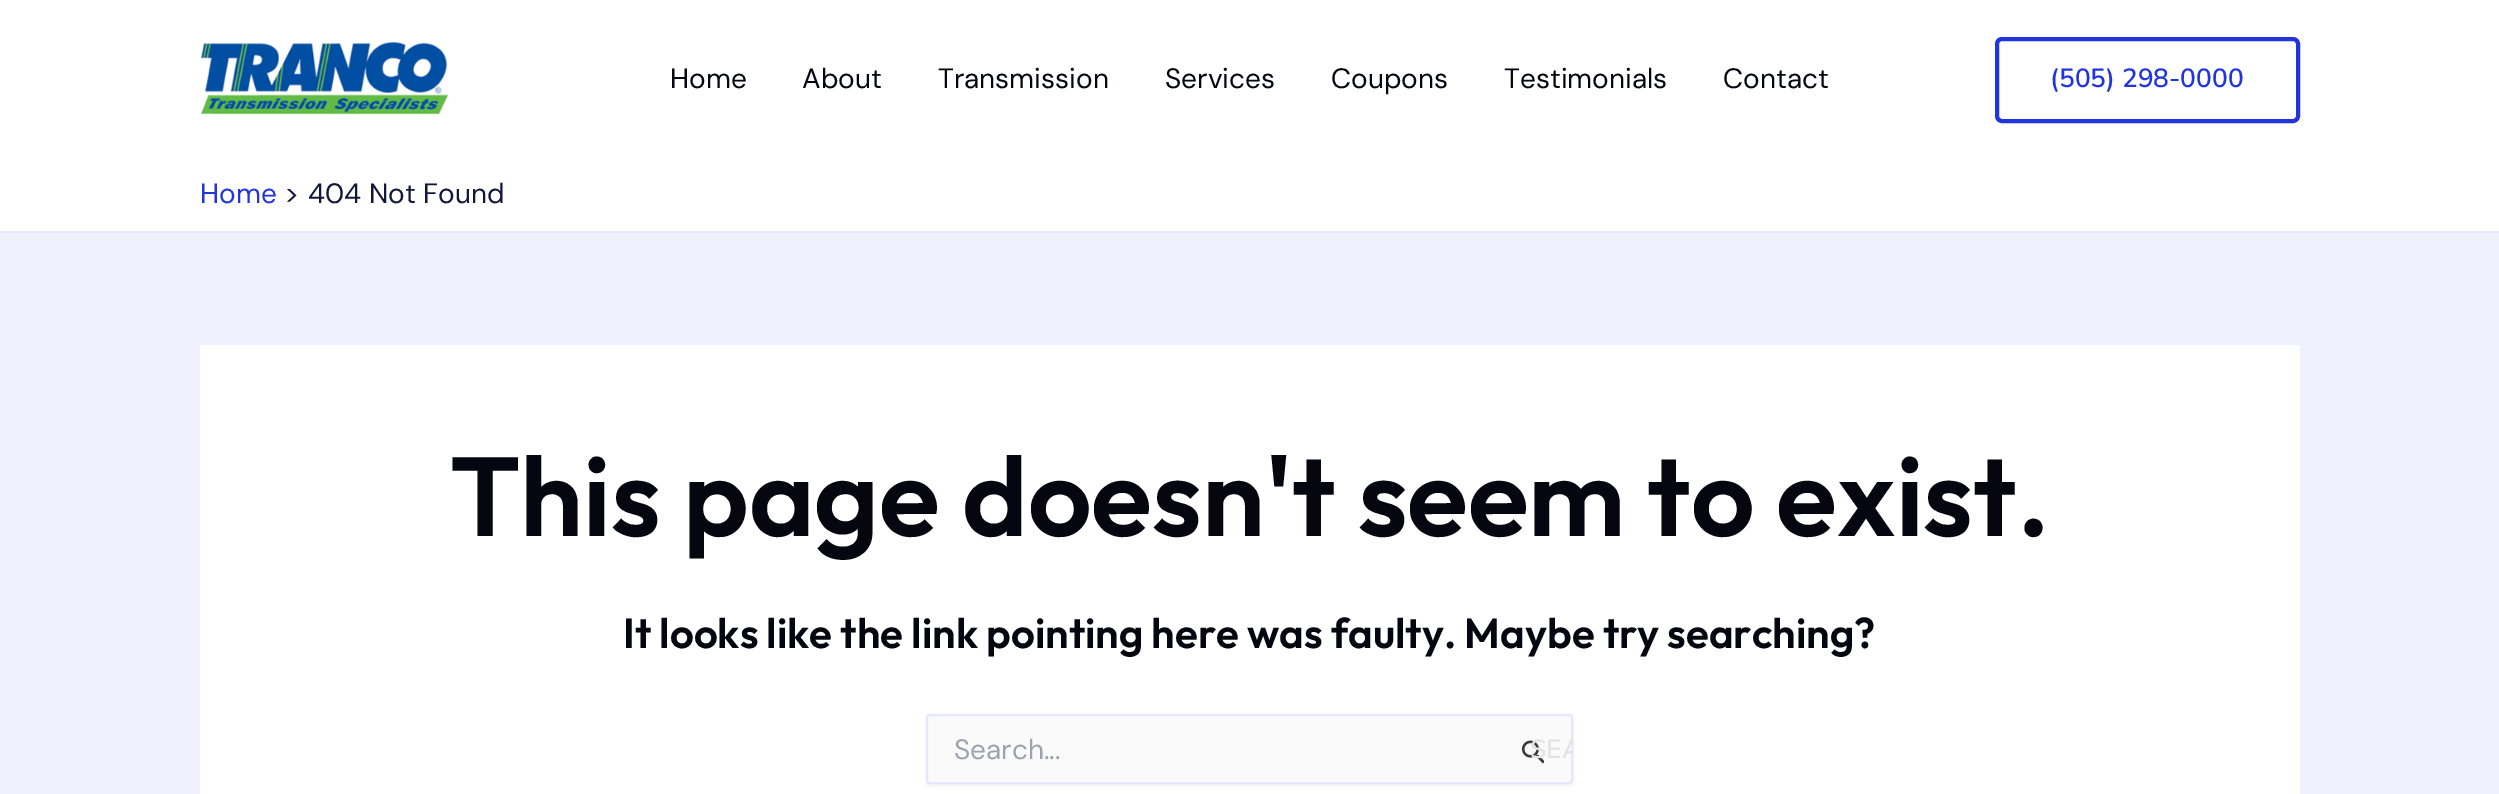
%!PS
<< /PageSize [2499 794] /PageUsesTransparency true >> setpagedevice
/fl/fill load def
/st/stroke load def
/gs/gsave load def
/gr/grestore load def
/lw/setlinewidth load def
/co { dup -16 bitshift 255 div exch dup -8 bitshift 255 and 255 div exch 255 and 255 div setrgbcolor } def
/fn { [ exch dup neg 0 0 3 -1 roll 0 0 ] selectfont } def
/tx { co fn moveto show } def
/bx { co rectfill } def
/al { dup .setfillconstantalpha .setstrokeconstantalpha } def
/rr { 5 dict begin { /r /h /w /y /x } { exch def } forall
  x r add y moveto x w add y 2 copy h add r arct x w add y h add x 1 index r arct
  x y h add x y r arct x y 2 copy exch w add exch r arct closepath end } def
/sh { 12 dict begin { /a /b /q /h /w /y /x } { exch def } forall gsave /was 0 def
  9 -2 -9 { dup b mul 4 div /e exch def 1 sub .425 mul 2.718 exch exp 1 add a .99 .min exch div /now exch def
    1 1 now sub 1 was sub div sub al /was now def
    w h .min e 2 mul add 0 gt { x e sub y e sub w e 2 mul add h e 2 mul add
      q e add b .6 mul add w h .min 2 div e add .min 0 .max rr fill } if } for grestore end } def
/im { 5 dict begin { /h /w /y /x /name } { exch def } forall
  gsave x y translate w h scale
  w h 8 [w 0 0 h 0 0] name (r) file false 3 colorimage grestore end } def
0 .pushpdf14devicefilter
0 794 translate 1 -1 scale
4 setmiterlimit
0 0 2499 794 16#F0F1FD bx
0 0 2499 231 16#FFFFFF bx
(media/1.raw) 200 41 248 74 im
16#2235DD co
4 lw
1997 39 301 82 5 rr st
0 231 2499 2 16#E4E7FD bx
200 345 2100 449 16#FFFFFF bx
16#000000 co
926 716 647 70 4 2 .05 sh
16#FAFAFA co
927 715 645 68 3 rr gs fl gr
16#E4E7FD co
2 lw
st
(media/2.raw) 1521 740 23 24 im
(Home) 670 88 /DMSans-Regular 28 16#05060F tx
(About) 802 88 /DMSans-Regular 28 16#05060F tx
(Transmission) 938 88 /DMSans-Regular 28 16#05060F tx
(Services) 1165 88 /DMSans-Regular 28 16#05060F tx
(Coupons) 1331 88 /DMSans-Regular 28 16#05060F tx
(Testimonials) 1504 88 /DMSans-Regular 28 16#05060F tx
(Contact) 1723 88 /DMSans-Regular 28 16#05060F tx
(\(505\) 298-0000) 2050 87 /NunitoSans-ExtraLight 26.25 16#2235DD tx
(Home) 200 203 /DMSans-Regular 28 16#2235DD tx
(>) 284 203 /DMSans-Regular 28 16#131739 tx
(404 Not Found) 308 203 /DMSans-Regular 28 16#131739 tx
(This page doesn't seem to exist.) 450 536 /Outfit-Thin 112 16#05060F tx
(It looks like the link pointing here was faulty. Maybe try searching?) 623 648 /Outfit-Thin 42 16#05060F tx
(Search...) 954 759 /DMSans-Regular 28 16#9CA3AF tx
gs
1495 714 78 72 4 rr clip newpath
(SEA) 1530 758 /NunitoSans-ExtraLight 26.25 16#E3E3E4 tx
gr
.poppdf14devicefilter showpage
